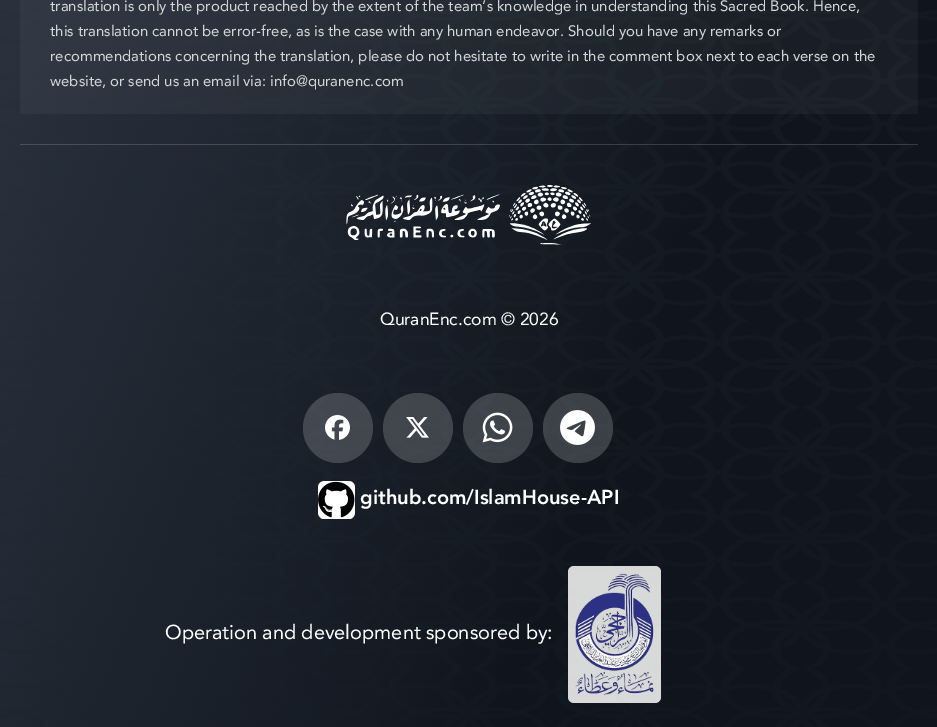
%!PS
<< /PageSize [937 727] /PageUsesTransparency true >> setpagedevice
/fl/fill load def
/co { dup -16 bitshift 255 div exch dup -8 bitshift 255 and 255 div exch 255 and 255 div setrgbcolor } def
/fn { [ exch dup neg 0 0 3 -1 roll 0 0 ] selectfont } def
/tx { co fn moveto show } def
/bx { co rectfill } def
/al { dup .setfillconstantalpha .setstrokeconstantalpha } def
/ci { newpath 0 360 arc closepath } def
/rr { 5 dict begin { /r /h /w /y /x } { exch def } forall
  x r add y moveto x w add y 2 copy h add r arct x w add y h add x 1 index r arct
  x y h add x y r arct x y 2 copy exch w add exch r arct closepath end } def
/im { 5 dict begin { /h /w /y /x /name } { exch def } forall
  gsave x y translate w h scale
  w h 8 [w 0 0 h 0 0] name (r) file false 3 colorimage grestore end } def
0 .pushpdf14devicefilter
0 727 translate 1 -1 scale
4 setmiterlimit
0 0 937 727 16#FFFFFF bx
(media/1.raw) 0 0 937 727 im
0.16 al
20 144 898 1 16#FFFFFF bx
0.04 al
20 0 898 114 16#FFFFFF bx
1 al
(media/2.raw) 346 185 245 60 im
0.18 al
338 428 35 ci fl
1 al
(media/3.raw) 325 415 25 25 im
0.18 al
418 428 35 ci fl
1 al
(media/4.raw) 406 417 23 21 im
0.18 al
498 428 35 ci fl
1 al
(media/5.raw) 482 412 31 31 im
0.18 al
578 428 35 ci fl
1 al
(media/6.raw) 560 410 35 35 im
318 481 37 38 6 rr fl
(media/7.raw) 318 481 37 37 im
0.95 al
16#E3E3E3 co
568 566 93 137 6 rr fl
1 al
(media/8.raw) 575 573 79 122 im
(translation is only the product reached by the extent of the team’s knowledge in understanding this Sacred Book. Hence,) 50 11 /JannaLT-Regular 15 16#D3D5D6 tx
(this translation cannot be error-free, as is the case with any human endeavor.) 50 36 /JannaLT-Regular 15 16#D3D5D6 tx
(Should you have any remarks or) 568 36 /JannaLT-Regular 15 16#D3D5D6 tx
(recommendations concerning the translation, please do not hesitate to write in the comment box next to each verse on the) 50 61 /JannaLT-Regular 15 16#D3D5D6 tx
(website, or send us an email via:) 50 86 /JannaLT-Regular 15 16#D3D5D6 tx
(info@quranenc.com) 270 86 /JannaLT-Regular 15 16#D3D5D6 tx
(QuranEnc.com © 2026) 380 325 /JannaLT-Regular 17.5 16#FFFFFF tx
(github.com/IslamHouse-API) 360 504 /JannaLT-Bold 20 16#FFFFFF tx
(Operation and development sponsored by:) 165 639 /JannaLT-Regular 20 16#FFFFFF tx
.poppdf14devicefilter showpage
